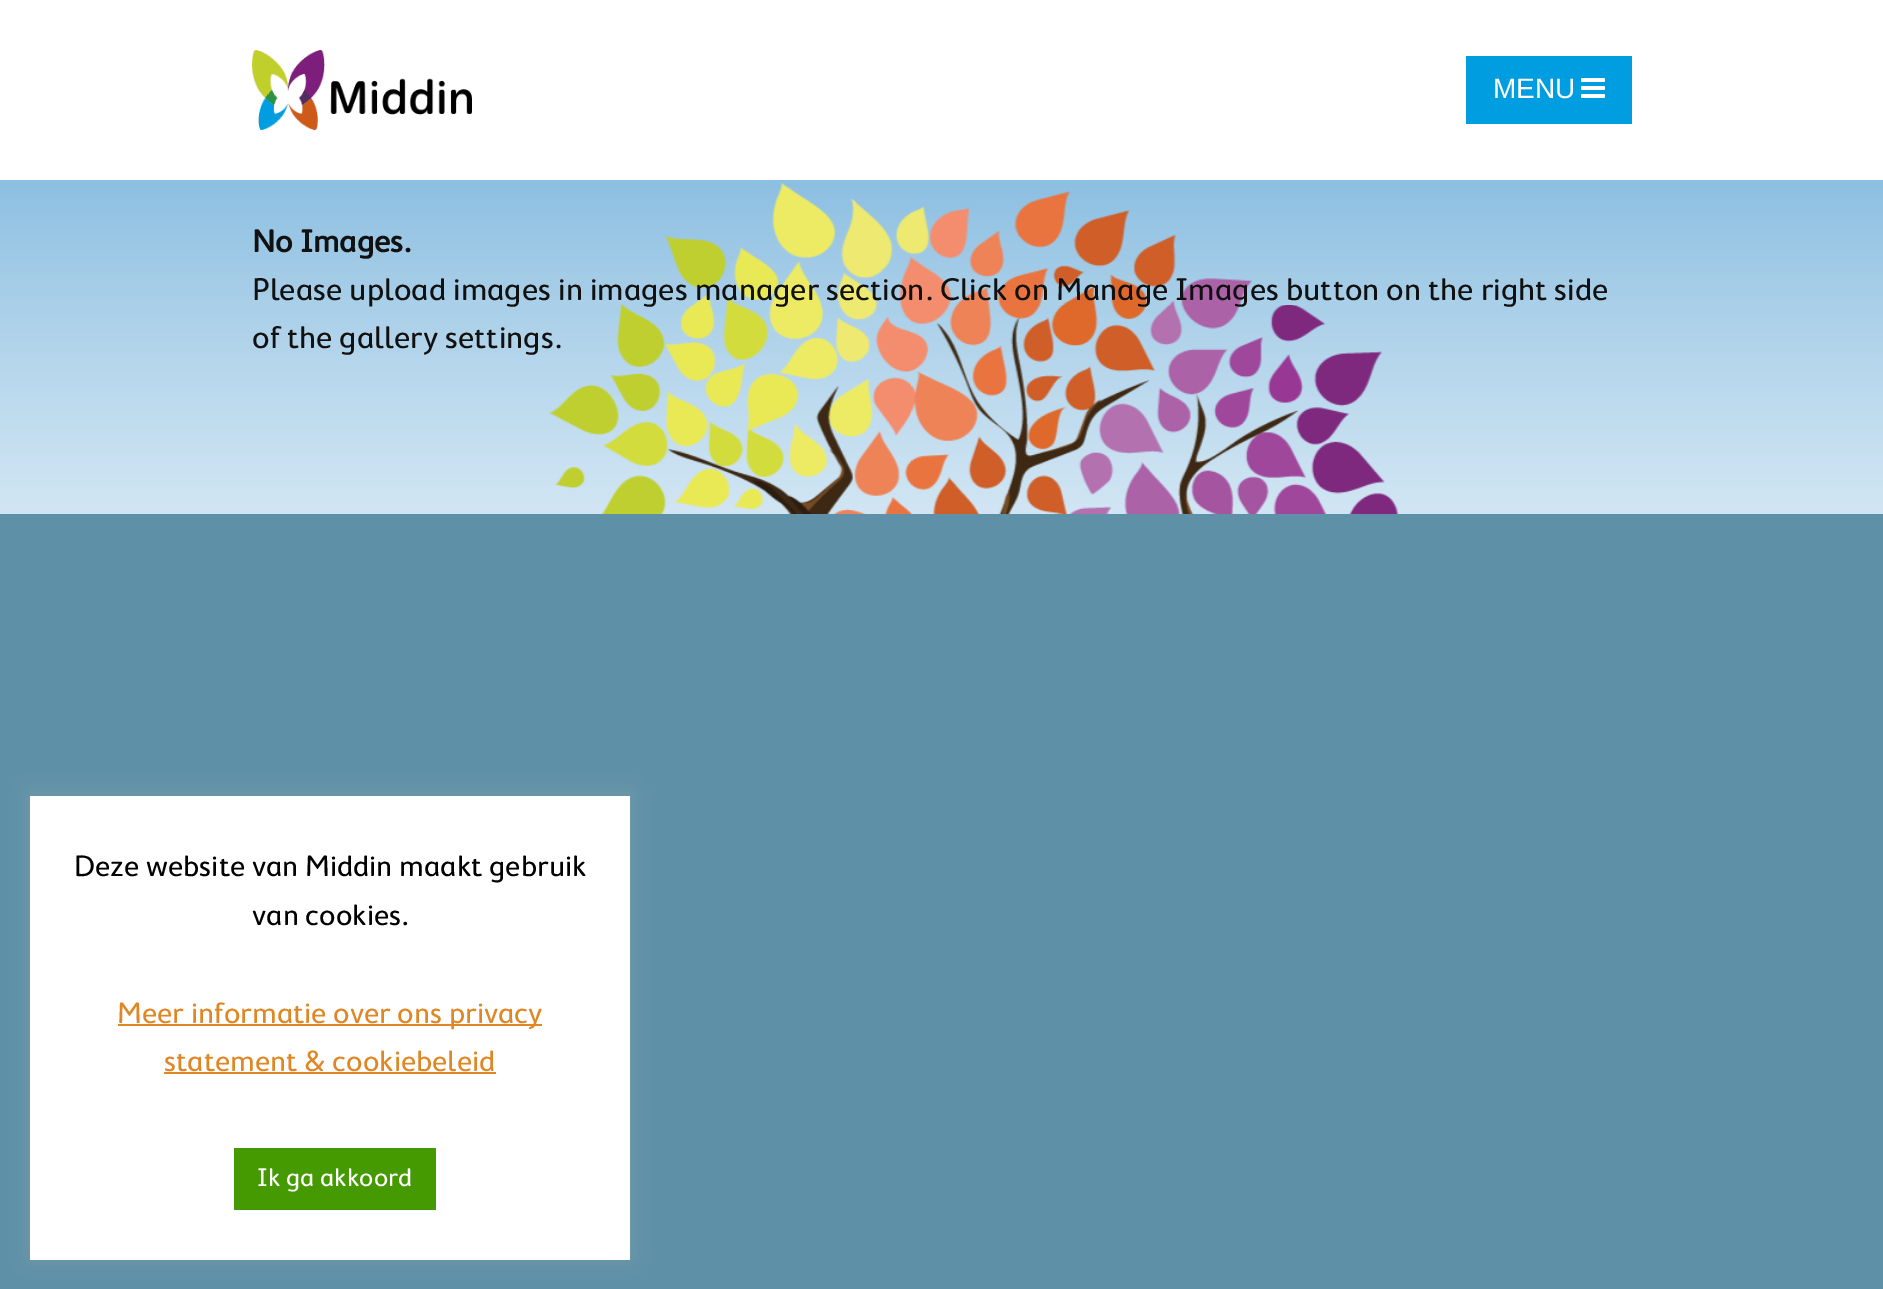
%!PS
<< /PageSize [1883 1289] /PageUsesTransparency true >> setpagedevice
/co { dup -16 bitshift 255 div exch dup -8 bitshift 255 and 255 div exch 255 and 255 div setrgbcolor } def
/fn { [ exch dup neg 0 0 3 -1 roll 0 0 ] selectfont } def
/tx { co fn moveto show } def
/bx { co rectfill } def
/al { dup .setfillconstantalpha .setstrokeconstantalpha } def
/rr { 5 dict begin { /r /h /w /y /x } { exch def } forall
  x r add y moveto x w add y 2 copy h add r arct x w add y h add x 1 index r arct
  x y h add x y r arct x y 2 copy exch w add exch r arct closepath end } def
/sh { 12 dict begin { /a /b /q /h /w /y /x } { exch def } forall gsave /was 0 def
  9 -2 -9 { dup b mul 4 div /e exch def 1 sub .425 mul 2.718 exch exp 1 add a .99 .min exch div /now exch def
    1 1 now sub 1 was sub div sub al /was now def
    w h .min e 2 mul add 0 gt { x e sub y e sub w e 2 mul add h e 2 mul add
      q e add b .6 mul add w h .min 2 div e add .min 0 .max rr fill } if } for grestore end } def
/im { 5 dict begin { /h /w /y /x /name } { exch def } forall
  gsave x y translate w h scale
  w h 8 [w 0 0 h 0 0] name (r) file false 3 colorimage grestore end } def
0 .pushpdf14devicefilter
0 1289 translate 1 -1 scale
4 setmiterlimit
0 0 1883 1289 16#FFFFFF bx
(media/1.raw) 0 180 1883 334 im
(media/2.raw) 252 50 220 80 im
1466 56 166 68 16#009DE0 bx
(media/3.raw) 1581 78 24 20 im
0 514 1883 775 16#5E91A8 bx
16#ACABAB co
30 794 600 464 0 10 .3 sh
30 796 600 464 16#FFFFFF bx
118 1024 424 2 16#E08725 bx
164 1072 332 2 16#E08725 bx
234 1148 202 62 16#459A01 bx
(MENU) 1493 98 /LiberationSans-Regular 28 16#FFFFFF tx
(No Images.) 252 252 /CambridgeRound-Bold 32 16#111111 tx
(Please upload images in images manager section. Click on Manage Images button on the right side) 252 300 /CambridgeRound-Regular 32 16#111111 tx
(of the gallery settings.) 252 348 /CambridgeRound-Regular 32 16#111111 tx
(Deze website van Middin maakt gebruik) 74 876 /CambridgeRound-Regular 30 16#000000 tx
(van cookies.) 252 925 /CambridgeRound-Regular 30 16#000000 tx
(Meer informatie over ons privacy) 117 1023 /CambridgeRound-Regular 30 16#E08725 tx
(statement & cookiebeleid) 164 1071 /CambridgeRound-Regular 30 16#E08725 tx
(Ik ga akkoord) 257 1186 /CambridgeRound-Regular 26 16#FFFFFF tx
.poppdf14devicefilter showpage
